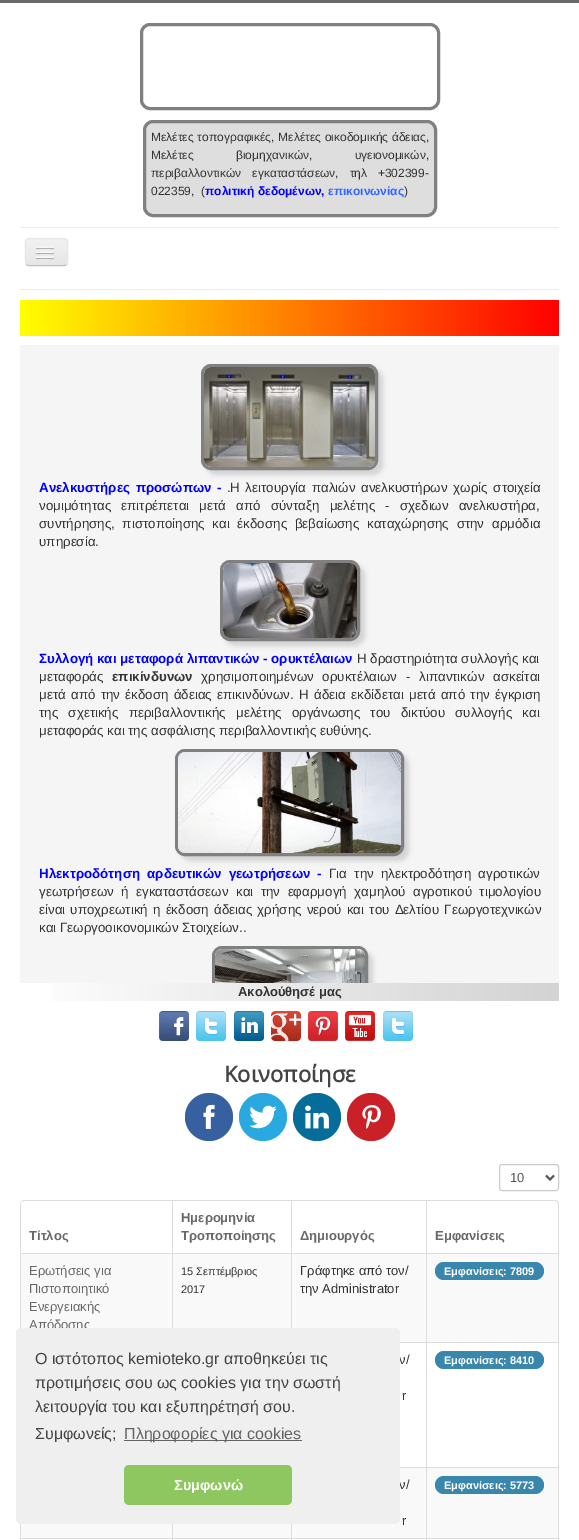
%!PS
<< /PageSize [579 1540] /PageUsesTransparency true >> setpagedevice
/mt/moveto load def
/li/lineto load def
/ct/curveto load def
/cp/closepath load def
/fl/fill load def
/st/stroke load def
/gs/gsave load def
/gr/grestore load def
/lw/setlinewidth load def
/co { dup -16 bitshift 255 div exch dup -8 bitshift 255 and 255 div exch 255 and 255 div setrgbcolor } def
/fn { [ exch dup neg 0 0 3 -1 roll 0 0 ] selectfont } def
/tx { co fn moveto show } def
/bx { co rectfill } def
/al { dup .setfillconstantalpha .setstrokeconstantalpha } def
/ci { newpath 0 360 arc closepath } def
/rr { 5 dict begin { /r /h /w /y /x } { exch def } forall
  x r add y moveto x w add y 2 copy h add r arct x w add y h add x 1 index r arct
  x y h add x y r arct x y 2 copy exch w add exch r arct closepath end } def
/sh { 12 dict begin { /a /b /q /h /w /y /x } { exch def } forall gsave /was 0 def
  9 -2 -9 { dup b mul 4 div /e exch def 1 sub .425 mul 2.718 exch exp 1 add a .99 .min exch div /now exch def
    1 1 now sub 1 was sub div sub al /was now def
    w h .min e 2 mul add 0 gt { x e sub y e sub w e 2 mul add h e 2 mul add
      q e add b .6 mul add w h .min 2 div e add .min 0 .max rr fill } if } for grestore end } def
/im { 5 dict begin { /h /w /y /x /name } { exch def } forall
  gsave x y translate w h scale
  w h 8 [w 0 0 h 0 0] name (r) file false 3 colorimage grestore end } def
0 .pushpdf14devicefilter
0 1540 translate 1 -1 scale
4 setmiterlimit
0 0 579 1540 16#FFFFFF bx
0 0 579 3 16#696969 bx
16#808080 co
3 lw
141.5 24.5 297 84 8.5 rr st
16#DEDEDE co
144.5 121.5 291 94 8.5 rr gs fl gr
16#808080 co
st
20 227 539 1 16#ECECEC bx
20 289 539 1 16#ECECEC bx
16#EDEDED co
25 238 43 28 4 rr fl
gs
25 238 43 28 4 rr clip newpath
gs 25 239 mt 68 239 li 68 265 li 25 265 li cp clip newpath
<< /ShadingType 2 /ColorSpace /DeviceRGB /Coords [47 239 47 265] /Extend [true true] /Function << /FunctionType 2 /Domain [0 1] /C0 [.949 .949 .949] /C1 [.902 .902 .902] /N 1 >> >> shfill gr
gr
16#BFBFBF co
1 lw
66.5 264.5 mt 66 265 65 265.5 64 265.5 ct 29 265.5 li 28 265.5 27 265 26.5 264.5 ct st
16#E6E6E6 co
26.5 264.5 mt 24.5 262 25.5 254.5 25.5 252 ct 25.5 240 23 238.5 35 238.5 ct 58 238.5 li 70 238.5 67.5 240 67.5 252 ct 67.5 254.5 68.5 262 66.5 264.5 ct st
16#B3B3B3 co
36 247.5 mt 35 249.5 39.5 249 39.5 249 ct 50.5 249 li 50.5 249 55 249.5 54 247.5 ct 53 248.5 46.5 248 45 248 ct 43.5 248 37 248.5 36 247.5 ct cp fl
16#F5F5F5 co
36 246 18 2 1 rr fl
16#B0B0B0 co
36 252.5 mt 35 254.5 39.5 254 39.5 254 ct 50.5 254 li 50.5 254 55 254.5 54 252.5 ct 53 253.5 46.5 253 45 253 ct 43.5 253 37 253.5 36 252.5 ct cp fl
16#F5F5F5 co
36 251 18 2 1 rr fl
16#AFAFAF co
36 257.5 mt 35 259.5 39.5 259 39.5 259 ct 50.5 259 li 50.5 259 55 259.5 54 257.5 ct 53 258.5 46.5 258 45 258 ct 43.5 258 37 258.5 36 257.5 ct cp fl
16#F5F5F5 co
36 256 18 2 1 rr fl
gs 20 300 mt 559 300 li 559 336 li 20 336 li cp clip newpath
<< /ShadingType 2 /ColorSpace /DeviceRGB /Coords [20 318 559 318] /Extend [true true] /Function << /FunctionType 2 /Domain [0 1] /C0 [1 1 0] /C1 [1 0 0] /N 1 >> >> shfill gr
20 345 539 638 16#F5F5F5 bx
16#D3D3D3 co
206 369 177 106 10 2.5 1 sh
16#808080 co
3 lw
202.5 365.5 174 103 8.5 rr st
(media/1.raw) 204 367 171 100 im
16#D3D3D3 co
225 565 140 81 10 2.5 1 sh
16#808080 co
221.5 561.5 137 78 8.5 rr st
(media/2.raw) 223 563 134 75 im
16#D3D3D3 co
180 754 229 107 10 2.5 1 sh
16#808080 co
176.5 750.5 226 104 8.5 rr st
(media/3.raw) 178 752 223 101 im
gs 51 983 mt 559 983 li 559 1001 li 51 1001 li cp clip newpath
<< /ShadingType 2 /ColorSpace /DeviceRGB /Coords [20 992 559 992] /Extend [true true] /Function << /FunctionType 2 /Domain [0 1] /C0 [1 1 1] /C1 [.827 .827 .827] /N 1 >> >> shfill gr
(media/6.raw) 196 1011 30 30 im
(media/7.raw) 234 1011 30 30 im
(media/8.raw) 271 1011 30 30 im
(media/9.raw) 308 1011 30 30 im
(media/10.raw) 345 1011 30 30 im
gs
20 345 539 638 rectclip
16#D3D3D3 co
217 951 156 103 10 2.5 1 sh
gr
gs
20 345 539 638 rectclip
213.5 947.5 153 100 8.5 rr st
gr
(media/4.raw) 215 949 150 34 im
(media/5.raw) 159 1011 30 30 im
(media/6.raw) 383 1011 30 30 im
16#36609F co
209 1117 24 ci fl
(media/11.raw) 203 1104 12 25 im
16#2AA9E0 co
263 1117 24 ci fl
(media/12.raw) 249 1105 28 24 im
16#066C9A co
317 1117 24 ci fl
(media/13.raw) 305 1105 24 24 im
16#CA2027 co
371 1117 24 ci fl
(media/14.raw) 362 1105 19 24 im
16#CCCCCC co
1 lw
499.5 1164.5 59 26 2.5 rr st
16#555555 co
2 lw
546 1175.5 mt 550 1179.5 li 554 1175.5 li st
16#DDDDDD co
24 1200 mt 555 1200 li 557 1200 559 1202 559 1204 ct 559 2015 li 559 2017 557 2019 555 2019 ct 24 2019 li 22 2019 20 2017 20 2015 ct 20 1204 li 20 1202 22 1200 24 1200 ct cp 24 1201 mt 555 1201 li 557 1201 558 1202 558 1204 ct 558 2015 li 558 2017 557 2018 555 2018 ct 24 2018 li 22 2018 20 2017 20 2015 ct 20 1204 li 20 1202 22 1201 24 1201 ct cp eofill
20 1203 1 50 16#DDDDDD bx
172 1201 1 52 16#DDDDDD bx
291 1201 1 52 16#DDDDDD bx
426 1201 1 52 16#DDDDDD bx
21 1254 151 74 16#F9F9F9 bx
20 1253 538 1 16#DDDDDD bx
20 1253 1 76 16#DDDDDD bx
173 1254 118 74 16#F9F9F9 bx
172 1253 1 75 16#DDDDDD bx
292 1254 134 88 16#F9F9F9 bx
291 1253 1 75 16#DDDDDD bx
427 1254 131 88 16#F9F9F9 bx
426 1253 1 89 16#DDDDDD bx
16#3A87AD co
435 1262 109 18 9 rr fl
400 1342 158 1 16#DDDDDD bx
426 1342 1 125 16#DDDDDD bx
16#3A87AD co
435 1351 109 18 9 rr fl
292 1468 134 70 16#F9F9F9 bx
400 1467 158 1 16#DDDDDD bx
291 1524 1 14 16#DDDDDD bx
427 1468 131 70 16#F9F9F9 bx
426 1467 1 71 16#DDDDDD bx
16#3A87AD co
435 1476 109 18 9 rr fl
21 1524 151 14 16#F9F9F9 bx
20 1523 1 15 16#DDDDDD bx
173 1524 118 14 16#F9F9F9 bx
172 1524 1 14 16#DDDDDD bx
20 1538 538 1 16#DDDDDD bx
20 1538 1 2 16#DDDDDD bx
172 1538 1 2 16#DDDDDD bx
291 1538 1 2 16#DDDDDD bx
426 1538 1 2 16#DDDDDD bx
/LiberationSans-Regular 12 fn
16#333333 co
151 141 mt .5 0 32 (Μελέτες τοπογραφικές, Μελέτες οικοδομικής άδειας,) widthshow
151 159 mt 39 0 32 (Μελέτες βιομηχανικών, υγειονομικών,) widthshow
151 177 mt 7.5 0 32 (περιβαλλοντικών εγκαταστάσεων, τηλ +302399-) widthshow
(022359,  \() 151 195 /LiberationSans-Regular 12 16#333333 tx
(πολιτική δεδομένων,) 205 195 /LiberationSans-Bold 12 16#0000FF tx
(επικοινωνίας) 328 195 /LiberationSans-Bold 12 16#3366FF tx
(\)) 404 195 /LiberationSans-Regular 12 16#333333 tx
/LiberationSans-Bold 13.35 fn
16#0000FF co
39 492 mt 2 0 32 (Ανελκυστήρες προσώπων -) widthshow
(.) 227 492 /LiberationSans-Regular 13.35 16#333333 tx
230 492 mt 2 0 32 (Η λειτουργία παλιών ανελκυστήρων χωρίς στοιχεία) widthshow
39 510 mt 6.5 0 32 (νομιμότητας επιτρέπεται μετά από σύνταξη μελέτης - σχεδιων ανελκυστήρα,) widthshow
39 528 mt 4 0 32 (συντήρησης, πιστοποίησης και έκδοσης βεβαίωσης καταχώρησης στην αρμόδια) widthshow
(υπηρεσία.) 39 546 /LiberationSans-Regular 13.35 16#333333 tx
(Συλλογή και μεταφορά λιπαντικών - ορυκτέλαιων) 39 663 /LiberationSans-Bold 13.35 16#0000FF tx
(Η δραστηριότητα συλλογής και) 357 663 /LiberationSans-Regular 13.35 16#333333 tx
(μεταφοράς) 39 681 /LiberationSans-Regular 13.35 16#333333 tx
(επικίνδυνων) 112 681 /LiberationSans-Bold 13.35 16#333333 tx
/LiberationSans-Regular 13.35 fn
201 681 mt 5 0 32 (χρησιμοποιημένων ορυκτέλαιων - λιπαντικών ασκείται) widthshow
39 699 mt 1.6 0 32 (μετά από την έκδοση άδειας επικινδύνων. Η άδεια εκδίδεται μετά από την έγκριση) widthshow
39 717 mt 6.5 0 32 (της σχετικής περιβαλλοντικής μελέτης οργάνωσης του δικτύου συλλογής και) widthshow
(μεταφοράς και της ασφάλισης περιβαλλοντικής ευθύνης.) 39 735 /LiberationSans-Regular 13.35 16#333333 tx
/LiberationSans-Bold 13.35 fn
16#0000FF co
39 878 mt 3.5 0 32 (Ηλεκτροδότηση αρδευτικών γεωτρήσεων -) widthshow
/LiberationSans-Regular 13.35 fn
16#333333 co
329 878 mt 3.5 0 32 (Για την ηλεκτροδότηση αγροτικών) widthshow
39 896 mt 3.75 0 32 (γεωτρήσεων ή εγκαταστάσεων και την εφαρμογή χαμηλού αγροτικού τιμολογίου) widthshow
39 914 mt 1.5 0 32 (είναι υποχρεωτική η έκδοση άδειας χρήσης νερού και του Δελτίου Γεωργοτεχνικών) widthshow
(και Γεωργοοικονομικών Στοιχείων..) 39 932 /LiberationSans-Regular 13.35 16#333333 tx
(Ακολούθησέ μας) 238 996 /LiberationSans-Bold 13 16#333333 tx
(Κοινοποίησε) 224 1082 /OpenSans-Bold 22 16#444444 tx
(10) 510 1182 /LiberationSans-Regular 13 16#555555 tx
(Τίτλος) 29 1240 /LiberationSans-Bold 13 16#696969 tx
(Ημερομηνία) 181 1222 /LiberationSans-Bold 13 16#696969 tx
(Τροποποίησης) 181 1240 /LiberationSans-Bold 13 16#696969 tx
(Δημιουργός) 300 1240 /LiberationSans-Bold 13 16#696969 tx
(Εμφανίσεις) 435 1240 /LiberationSans-Bold 13 16#696969 tx
(Ερωτήσεις για) 29 1275 /LiberationSans-Regular 13 16#696969 tx
(Πιστοποιητικό) 29 1293 /LiberationSans-Regular 13 16#696969 tx
(Ενεργειακής) 29 1311 /LiberationSans-Regular 13 16#696969 tx
(Απόδοσης) 29 1329 /LiberationSans-Regular 13 16#696969 tx
(15 Σεπτέμβριος) 181 1275 /LiberationSans-Regular 11 16#333333 tx
(2017) 181 1293 /LiberationSans-Regular 11 16#333333 tx
(Γράφτηκε από τον/) 300 1275 /LiberationSans-Regular 13 16#333333 tx
(την Administrator) 300 1293 /LiberationSans-Regular 13 16#333333 tx
(Εμφανίσεις: 7809) 444 1275 /LiberationSans-Bold 11 16#FFFFFF tx
(ν/) 399 1364 /LiberationSans-Regular 13 16#333333 tx
(r) 402 1400 /LiberationSans-Regular 13 16#333333 tx
(Εμφανίσεις: 8410) 444 1364 /LiberationSans-Bold 11 16#FFFFFF tx
(ν/) 399 1489 /LiberationSans-Regular 13 16#333333 tx
(r) 402 1525 /LiberationSans-Regular 13 16#333333 tx
(Εμφανίσεις: 5773) 444 1489 /LiberationSans-Bold 11 16#FFFFFF tx
16#EFEFEF co
16 1328 384 196 5 rr fl
(Ο ιστότοπος kemioteko.gr αποθηκεύει τις) 35 1364 /LiberationSans-Regular 16 16#444444 tx
(προτιμήσεις σου ως cookies για την σωστή) 35 1388 /LiberationSans-Regular 16 16#444444 tx
(λειτουργία του και εξυπηρέτησή σου.) 35 1412 /LiberationSans-Regular 16 16#444444 tx
(Συμφωνείς;) 35 1439 /LiberationSans-Regular 16 16#444444 tx
124 1440 178 1 16#636363 bx
(Πληροφορίες για cookies) 124 1439 /LiberationSans-Regular 16 16#636363 tx
16#8EC760 co
124 1465 168 40 5 rr fl
(Συμφωνώ) 174 1490 /LiberationSans-Bold 14.5 16#FFFFFF tx
.poppdf14devicefilter showpage
